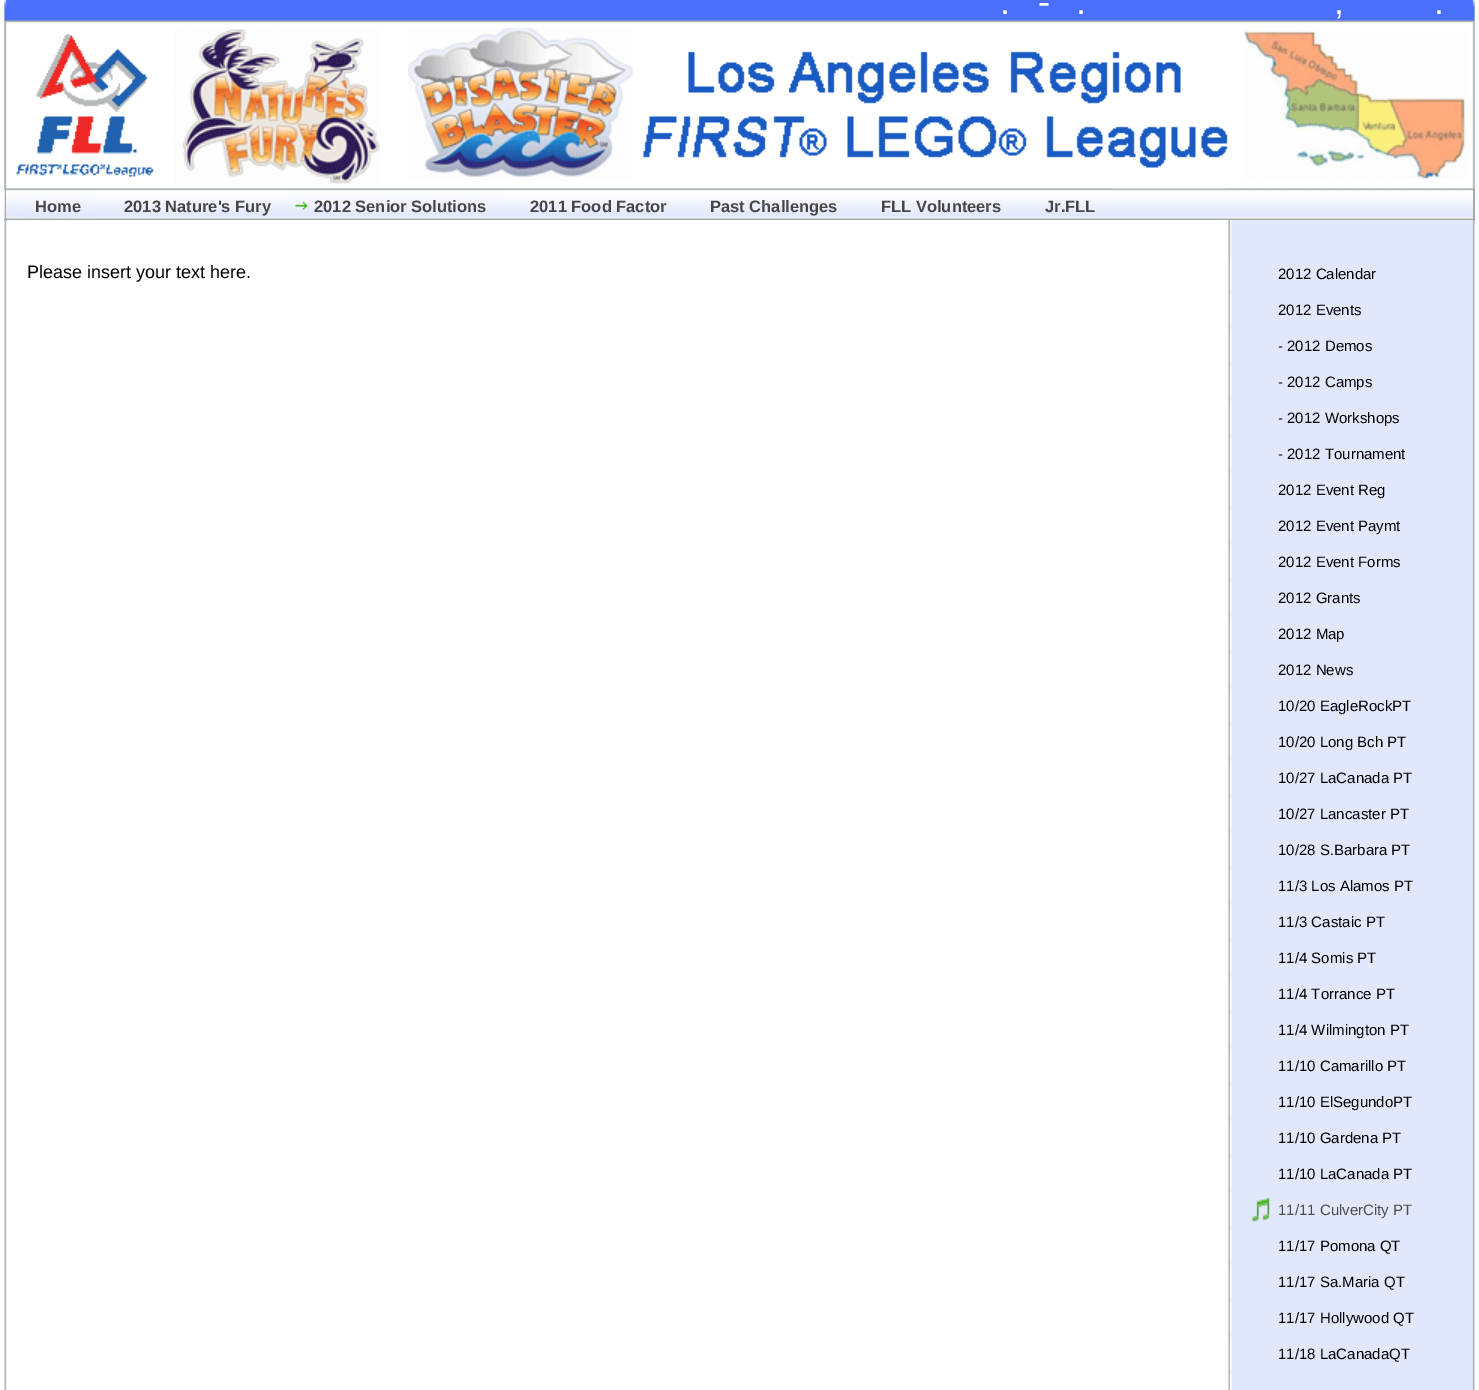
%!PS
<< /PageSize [1479 1390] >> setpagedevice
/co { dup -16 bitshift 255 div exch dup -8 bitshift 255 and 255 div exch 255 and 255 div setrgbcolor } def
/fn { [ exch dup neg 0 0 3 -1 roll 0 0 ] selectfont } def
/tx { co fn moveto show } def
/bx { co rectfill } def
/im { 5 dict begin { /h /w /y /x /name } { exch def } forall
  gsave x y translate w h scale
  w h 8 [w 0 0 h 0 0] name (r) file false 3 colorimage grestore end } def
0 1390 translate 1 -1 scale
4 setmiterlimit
0 0 1479 1390 16#FFFFFF bx
(media/1.raw) 4 0 1471 1390 im
(media/2.raw) 4 0 1471 189 im
(media/3.raw) 16 27 1452 158 im
(media/4.raw) 4 188 1471 32 im
1473 189 2 32 16#A4ABAD bx
5 189 2 32 16#A4ABAD bx
(media/5.raw) 6 188 90 31 im
(media/6.raw) 96 188 191 1 im
(media/7.raw) 286 188 215 22 im
(media/8.raw) 501 188 182 1 im
(media/9.raw) 682 188 172 1 im
(media/10.raw) 853 188 164 1 im
1017 188 93 1 16#C5CACB bx
(media/11.raw) 1230 257 1 32 im
(media/11.raw) 1230 293 1 32 im
(media/11.raw) 1230 329 1 32 im
(media/11.raw) 1230 365 1 32 im
(media/11.raw) 1230 401 1 32 im
(media/11.raw) 1230 437 1 32 im
(media/11.raw) 1230 473 1 32 im
(media/11.raw) 1230 509 1 32 im
(media/11.raw) 1230 545 1 32 im
(media/11.raw) 1230 581 1 32 im
(media/11.raw) 1230 617 1 32 im
(media/11.raw) 1230 653 1 32 im
(media/11.raw) 1230 689 1 32 im
(media/11.raw) 1230 725 1 32 im
(media/11.raw) 1230 761 1 32 im
(media/11.raw) 1230 797 1 32 im
(media/11.raw) 1230 833 1 32 im
(media/11.raw) 1230 869 1 32 im
(media/11.raw) 1230 905 1 32 im
(media/11.raw) 1230 941 1 32 im
(media/11.raw) 1230 977 1 32 im
(media/11.raw) 1230 1013 1 32 im
(media/11.raw) 1230 1049 1 32 im
(media/11.raw) 1230 1085 1 32 im
(media/11.raw) 1230 1121 1 32 im
(media/11.raw) 1230 1157 1 32 im
(media/12.raw) 1230 1193 40 32 im
(media/11.raw) 1230 1229 1 32 im
(media/11.raw) 1230 1265 1 32 im
(media/11.raw) 1230 1301 1 32 im
(media/11.raw) 1230 1337 1 32 im
(media/13.raw) 1230 1373 1 17 im
(-) 1038 14 /LiberationSans-Regular 36 16#FFFFFF tx
(.) 1000 14 /LiberationSans-Regular 36 16#FFFFFF tx
(.) 1076 14 /LiberationSans-Regular 36 16#FFFFFF tx
(,) 1334 14 /LiberationSans-Regular 36 16#FFFFFF tx
(.) 1434 14 /LiberationSans-Regular 36 16#FFFFFF tx
(Home) 35 212 /LiberationSans-Bold 16.5 16#454646 tx
(2013 Nature's Fury) 124 212 /LiberationSans-Bold 16.5 16#454646 tx
(2012 Senior Solutions) 314 212 /LiberationSans-Bold 16.5 16#454646 tx
(2011 Food Factor) 530 212 /LiberationSans-Bold 16.5 16#454646 tx
(Past Challenges) 710 212 /LiberationSans-Bold 16.5 16#454646 tx
(FLL Volunteers) 881 212 /LiberationSans-Bold 16.5 16#454646 tx
(Jr.FLL) 1045 212 /LiberationSans-Bold 16.5 16#454646 tx
(Please insert your text here.) 27 278 /LiberationSans-Regular 18 16#000000 tx
(2012 Calendar) 1278 279 /LiberationSans-Regular 15 16#000000 tx
(2012 Events) 1278 315 /LiberationSans-Regular 15 16#000000 tx
(- 2012 Demos) 1278 351 /LiberationSans-Regular 15 16#000000 tx
(- 2012 Camps) 1278 387 /LiberationSans-Regular 15 16#000000 tx
(- 2012 Workshops) 1278 423 /LiberationSans-Regular 15 16#000000 tx
(- 2012 Tournament) 1278 459 /LiberationSans-Regular 15 16#000000 tx
(2012 Event Reg) 1278 495 /LiberationSans-Regular 15 16#000000 tx
(2012 Event Paymt) 1278 531 /LiberationSans-Regular 15 16#000000 tx
(2012 Event Forms) 1278 567 /LiberationSans-Regular 15 16#000000 tx
(2012 Grants) 1278 603 /LiberationSans-Regular 15 16#000000 tx
(2012 Map) 1278 639 /LiberationSans-Regular 15 16#000000 tx
(2012 News) 1278 675 /LiberationSans-Regular 15 16#000000 tx
(10/20 EagleRockPT) 1278 711 /LiberationSans-Regular 15 16#000000 tx
(10/20 Long Bch PT) 1278 747 /LiberationSans-Regular 15 16#000000 tx
(10/27 LaCanada PT) 1278 783 /LiberationSans-Regular 15 16#000000 tx
(10/27 Lancaster PT) 1278 819 /LiberationSans-Regular 15 16#000000 tx
(10/28 S.Barbara PT) 1278 855 /LiberationSans-Regular 15 16#000000 tx
(11/3 Los Alamos PT) 1278 891 /LiberationSans-Regular 15 16#000000 tx
(11/3 Castaic PT) 1278 927 /LiberationSans-Regular 15 16#000000 tx
(11/4 Somis PT) 1278 963 /LiberationSans-Regular 15 16#000000 tx
(11/4 Torrance PT) 1278 999 /LiberationSans-Regular 15 16#000000 tx
(11/4 Wilmington PT) 1278 1035 /LiberationSans-Regular 15 16#000000 tx
(11/10 Camarillo PT) 1278 1071 /LiberationSans-Regular 15 16#000000 tx
(11/10 ElSegundoPT) 1278 1107 /LiberationSans-Regular 15 16#000000 tx
(11/10 Gardena PT) 1278 1143 /LiberationSans-Regular 15 16#000000 tx
(11/10 LaCanada PT) 1278 1179 /LiberationSans-Regular 15 16#000000 tx
(11/11 CulverCity PT) 1278 1215 /LiberationSans-Regular 15 16#4D4D4D tx
(11/17 Pomona QT) 1278 1251 /LiberationSans-Regular 15 16#000000 tx
(11/17 Sa.Maria QT) 1278 1287 /LiberationSans-Regular 15 16#000000 tx
(11/17 Hollywood QT) 1278 1323 /LiberationSans-Regular 15 16#000000 tx
(11/18 LaCanadaQT) 1278 1359 /LiberationSans-Regular 15 16#000000 tx
showpage
